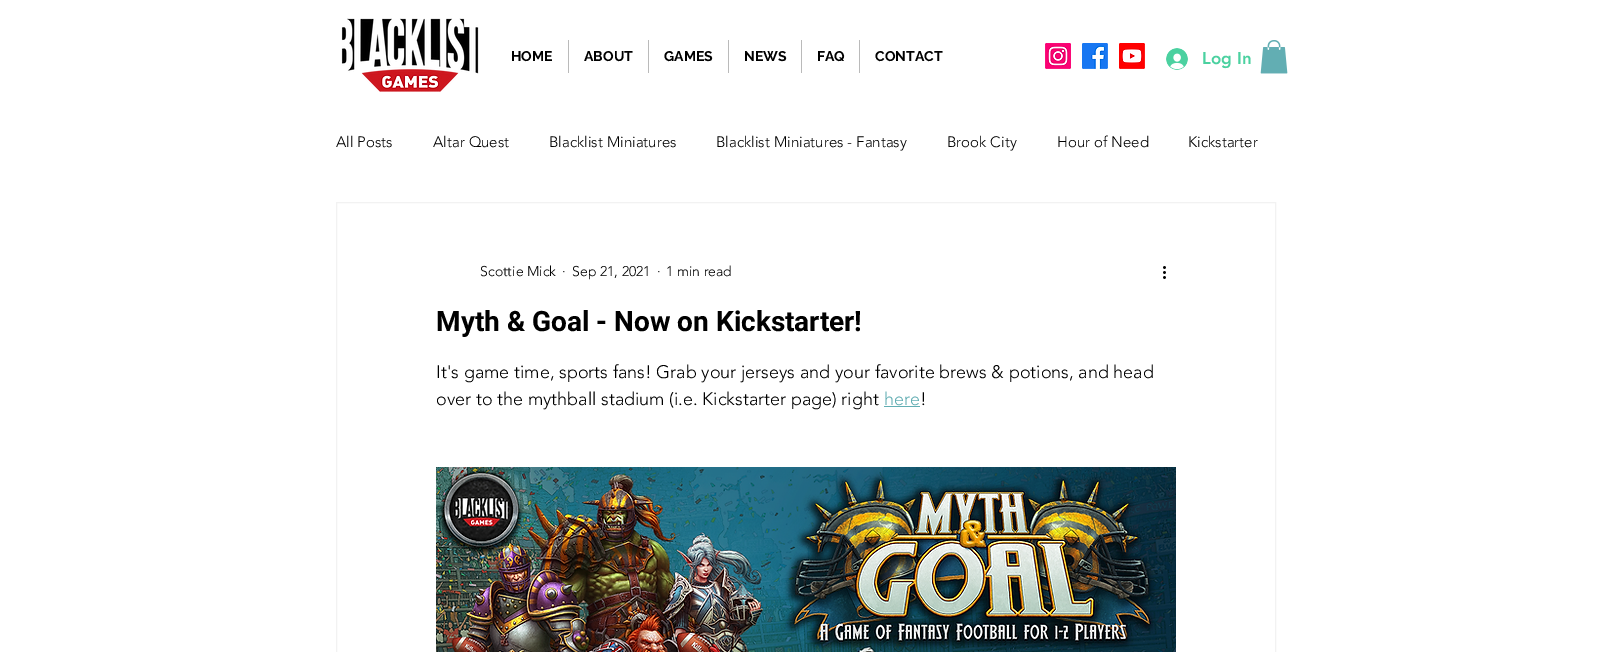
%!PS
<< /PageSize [1612 652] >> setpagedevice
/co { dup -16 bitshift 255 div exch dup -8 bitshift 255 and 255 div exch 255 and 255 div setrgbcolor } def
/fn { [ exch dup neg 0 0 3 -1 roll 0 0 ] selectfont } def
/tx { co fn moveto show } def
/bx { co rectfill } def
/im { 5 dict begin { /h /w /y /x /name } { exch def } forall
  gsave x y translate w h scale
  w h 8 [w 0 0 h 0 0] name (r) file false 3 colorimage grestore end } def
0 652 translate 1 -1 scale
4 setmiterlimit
0 0 1612 652 16#FFFFFF bx
(media/1.raw) 341 18 138 74 im
568 40 1 33 16#BABABA bx
648 40 1 33 16#BABABA bx
728 40 1 33 16#BABABA bx
801 40 1 33 16#BABABA bx
859 40 1 33 16#BABABA bx
(media/2.raw) 1045 43 26 26 im
(media/3.raw) 1082 43 26 26 im
(media/4.raw) 1119 43 26 26 im
(media/5.raw) 1166 48 22 22 im
(media/6.raw) 1260 40 28 34 im
16#F2F2F2 co
336.5 202.5 939 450 rectstroke
(media/7.raw) 1163 266 3 13 im
884 406 36 1 16#62AEB3 bx
(media/8.raw) 436 467 740 185 im
(HOME) 511 61 /Raleway-Bold 14 16#000000 tx
(ABOUT) 584 61 /Raleway-Bold 14 16#000000 tx
(GAMES) 664 61 /Raleway-Bold 14 16#000000 tx
(NEWS) 744 61 /Raleway-Bold 14 16#000000 tx
(FAQ) 817 61 /Raleway-Bold 14 16#000000 tx
(CONTACT) 875 61 /Raleway-Bold 14 16#000000 tx
(Log In) 1202 64 /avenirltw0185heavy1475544-Black 17 16#4BD1A0 tx
(All Posts) 336 147 /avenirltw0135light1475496-Light 15 16#000000 tx
(Altar Quest) 433 147 /avenirltw0135light1475496-Light 15 16#000000 tx
(Blacklist Miniatures) 549 147 /avenirltw0135light1475496-Light 15 16#000000 tx
(Blacklist Miniatures - Fantasy) 716 147 /avenirltw0135light1475496-Light 15 16#000000 tx
(Brook City) 947 147 /avenirltw0135light1475496-Light 15 16#000000 tx
(Hour of Need) 1057 147 /avenirltw0135light1475496-Light 15 16#000000 tx
(Kickstarter) 1188 147 /avenirltw0135light1475496-Light 15 16#000000 tx
(Scottie Mick) 480 276 /avenirltw0135light1475496-Light 14 16#000000 tx
(·) 562 276 /avenirltw0135light1475496-Light 14 16#000000 tx
(Sep 21, 2021) 572 276 /avenirltw0135light1475496-Light 14 16#000000 tx
(·) 657 276 /avenirltw0135light1475496-Light 14 16#000000 tx
(1 min read) 666 276 /avenirltw0135light1475496-Light 14 16#000000 tx
(Myth & Goal - Now on Kickstarter!) 436 331 /Roboto-Bold 28 16#000000 tx
(It's game time, sports fans! Grab your jerseys and your favorite brews & potions, and head) 436 378 /avenirltw0135light1475496-Light 18 16#000000 tx
(over to the mythball stadium \(i.e. Kickstarter page\) right) 436 405 /avenirltw0135light1475496-Light 18 16#000000 tx
(here) 884 405 /avenirltw0135light1475496-Light 18 16#62AEB3 tx
(!) 920 405 /avenirltw0135light1475496-Light 18 16#000000 tx
showpage
